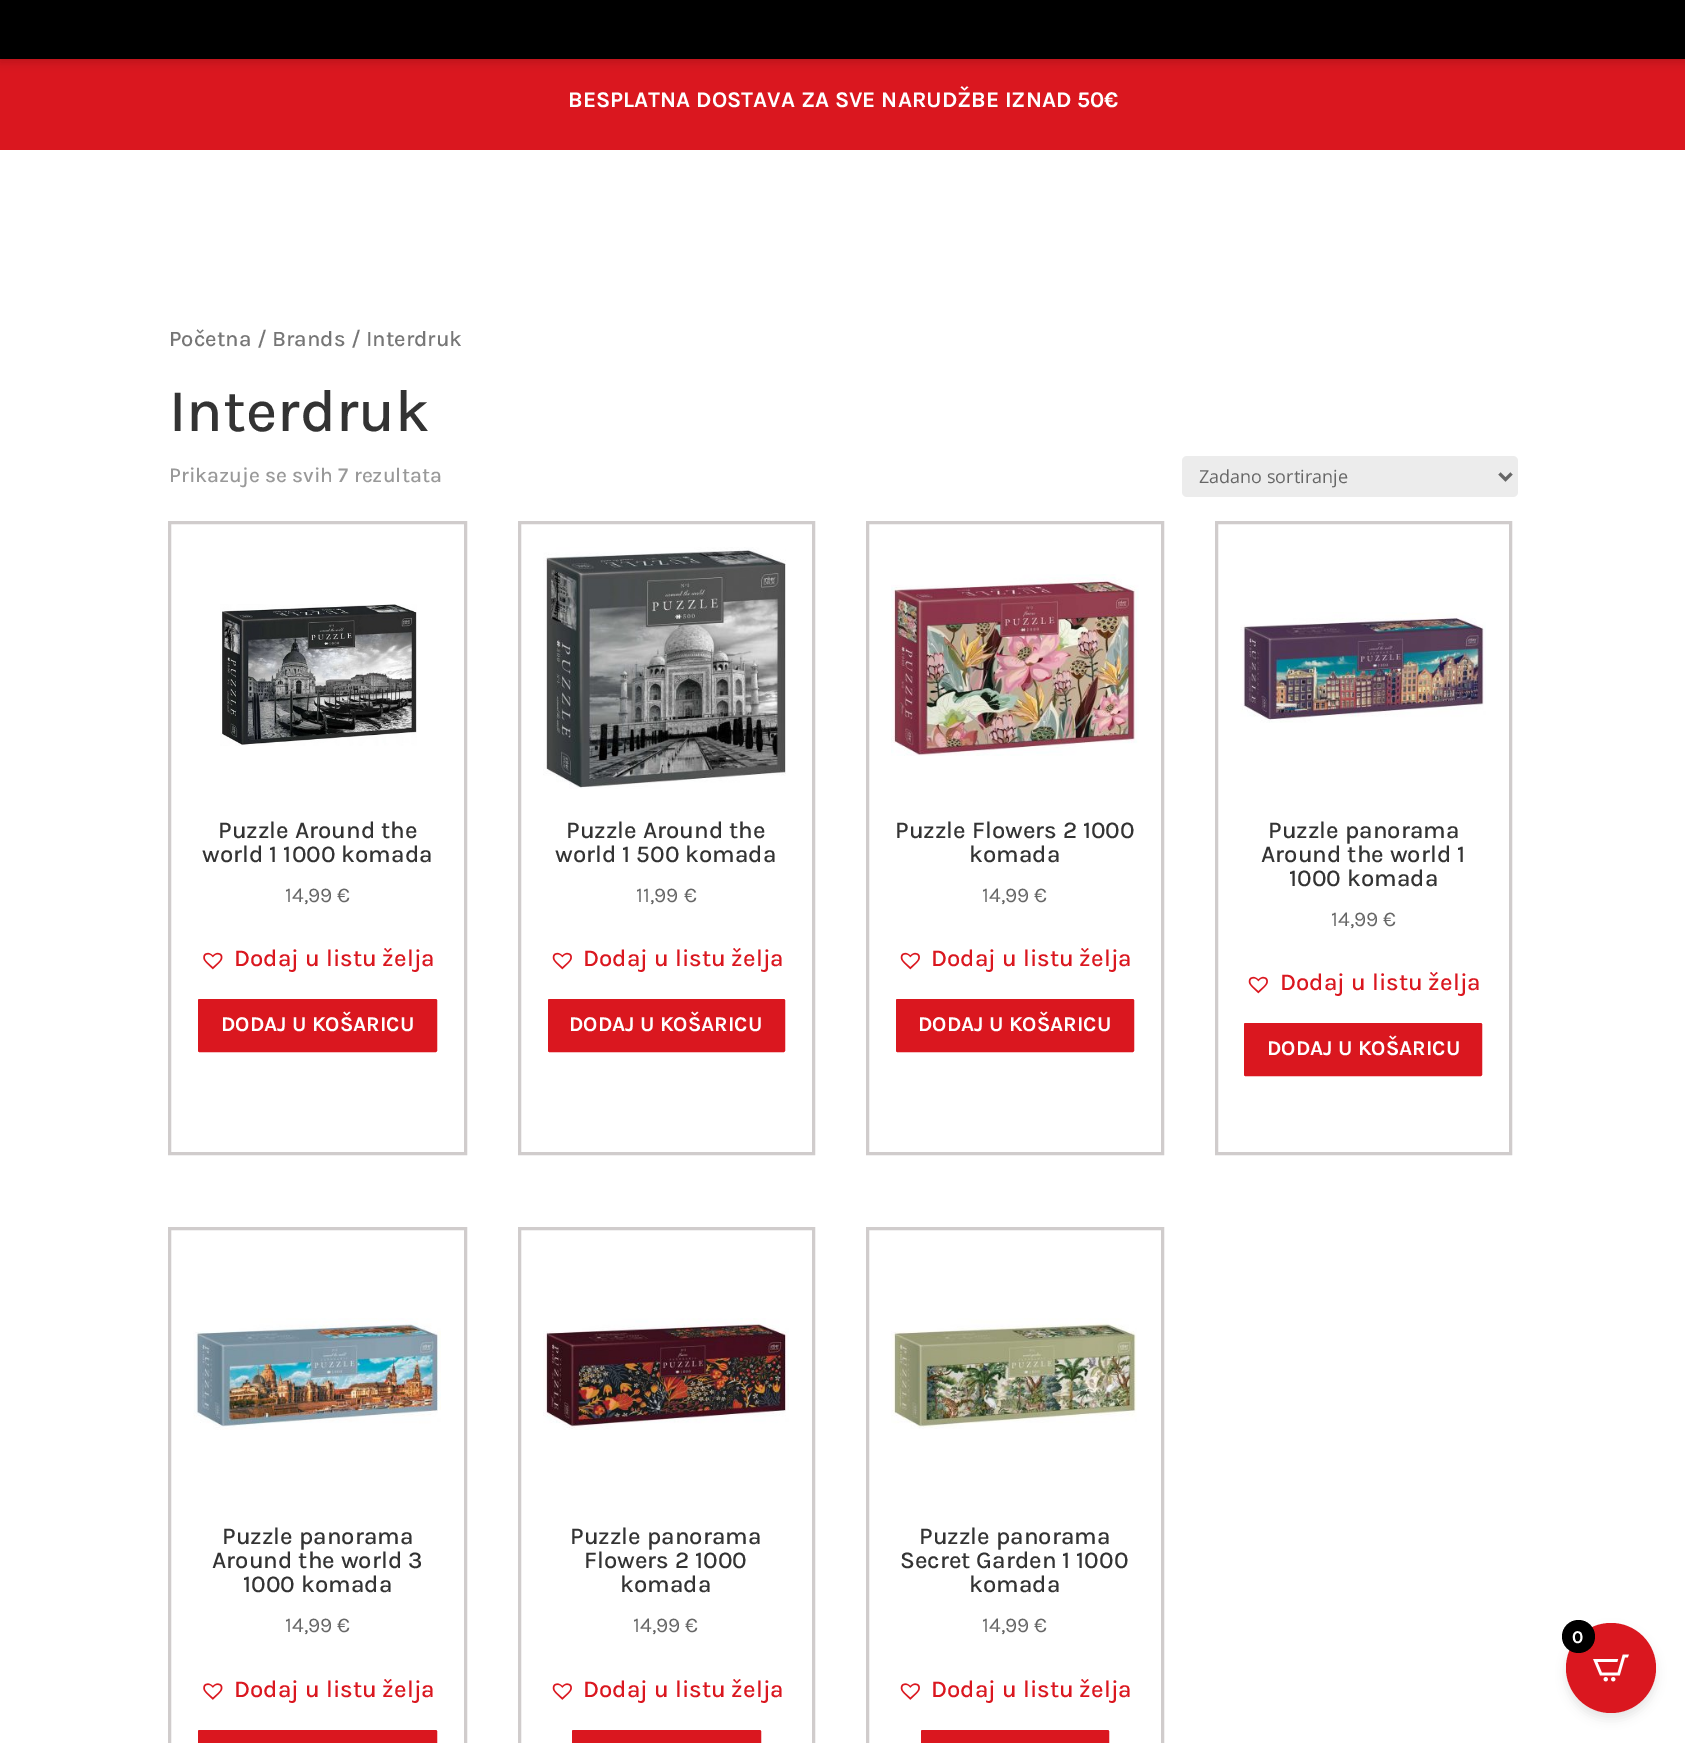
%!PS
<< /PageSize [1685 1743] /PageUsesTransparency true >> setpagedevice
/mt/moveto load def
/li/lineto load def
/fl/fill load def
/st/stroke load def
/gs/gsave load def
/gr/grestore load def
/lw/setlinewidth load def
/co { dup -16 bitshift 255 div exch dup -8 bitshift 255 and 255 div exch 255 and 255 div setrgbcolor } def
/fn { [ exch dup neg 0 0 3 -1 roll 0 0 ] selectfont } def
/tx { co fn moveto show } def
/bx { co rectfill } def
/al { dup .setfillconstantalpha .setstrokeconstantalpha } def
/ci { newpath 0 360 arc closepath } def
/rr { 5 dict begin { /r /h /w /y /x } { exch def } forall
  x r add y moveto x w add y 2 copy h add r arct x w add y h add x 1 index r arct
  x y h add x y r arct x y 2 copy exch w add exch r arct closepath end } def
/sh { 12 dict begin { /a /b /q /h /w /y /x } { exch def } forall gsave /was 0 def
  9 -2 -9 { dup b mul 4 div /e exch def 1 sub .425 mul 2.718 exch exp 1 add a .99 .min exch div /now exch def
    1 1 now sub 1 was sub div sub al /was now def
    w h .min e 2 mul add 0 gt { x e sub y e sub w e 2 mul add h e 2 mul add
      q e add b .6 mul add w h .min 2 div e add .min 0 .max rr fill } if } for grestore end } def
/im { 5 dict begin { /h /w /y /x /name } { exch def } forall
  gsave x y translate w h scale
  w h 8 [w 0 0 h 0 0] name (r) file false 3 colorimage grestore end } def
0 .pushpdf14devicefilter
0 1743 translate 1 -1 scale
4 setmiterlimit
0 0 1685 1743 16#FFFFFF bx
0 59 1685 91 16#DA171F bx
16#000000 co
0 -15 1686 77 0 5 .15 sh
0 0 1685 59 16#000000 bx
16#ECECEC co
1182 456 336 41 5 rr fl
16#666666 co
3 lw
1499.5 473.5 mt 1505.5 479.5 li 1511.5 473.5 li st
16#D0CCCC co
169.5 522.5 296 631 rectstroke
(media/1.raw) 220 604 197 142 im
(media/2.raw) 203 952 20 18 im
16#DA171F co
199 1000 237 51 .5 rr gs fl gr
2 lw
st
16#D0CCCC co
3 lw
519.5 522.5 294 631 rectstroke
(media/3.raw) 543 547 243 242 im
(media/4.raw) 552 952 20 18 im
16#DA171F co
549 1000 235 51 .5 rr gs fl gr
2 lw
st
16#D0CCCC co
3 lw
867.5 522.5 295 631 rectstroke
(media/5.raw) 891 574 248 182 im
(media/4.raw) 900 952 20 18 im
16#DA171F co
897 1000 236 51 .5 rr gs fl gr
2 lw
st
16#D0CCCC co
3 lw
1216.5 522.5 294 631 rectstroke
(media/6.raw) 1240 612 246 111 im
(media/4.raw) 1248 976 20 18 im
16#DA171F co
1245 1024 236 51 .5 rr gs fl gr
2 lw
st
16#D0CCCC co
3 lw
169.5 1228.5 296 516 rectstroke
(media/7.raw) 193 1318 248 112 im
(media/8.raw) 203 1683 20 17 im
16#DA171F co
199 1731 237 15 .5 rr gs fl gr
2 lw
st
16#D0CCCC co
3 lw
519.5 1228.5 294 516 rectstroke
(media/9.raw) 543 1318 246 112 im
(media/10.raw) 552 1683 20 17 im
16#DA171F co
573 1731 187 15 .5 rr gs fl gr
2 lw
st
16#D0CCCC co
3 lw
867.5 1228.5 295 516 rectstroke
(media/11.raw) 891 1318 246 111 im
(media/10.raw) 900 1683 20 17 im
16#DA171F co
922 1731 186 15 .5 rr gs fl gr
2 lw
st
16#000000 co
1566 1629 90 90 45 5 .1 sh
16#DA171F co
1611 1668 45 ci fl
16#000000 co
1578.5 1636.5 16.5 ci fl
(media/12.raw) 1593 1654 36 28 im
(BESPLATNA DOSTAVA ZA SVE NARUDŽBE IZNAD 50€) 568 107 /Karla-Bold 22.5 16#FFFFFF tx
(Početna / Brands / Interdruk) 169 346 /Karla-Medium 22.1 16#767676 tx
(Interdruk) 169 431 /Karla-Medium 60 16#333333 tx
(Prikazuje se svih 7 rezultata) 169 482 /Karla-Medium 21 16#999999 tx
(Zadano sortiranje) 1199 483 /OpenSans-Regular 18 16#666666 tx
(Puzzle Around the) 218 838 /Karla-Medium 24 16#333333 tx
(world 1 1000 komada) 202 862 /Karla-Medium 24 16#333333 tx
(14,99 €) 285 902 /Karla-Regular 21 16#666666 tx
(Dodaj u listu želja) 234 966 /Karla-Medium 24 16#DA171F tx
(DODAJ U KOŠARICU) 221 1031 /Karla-Bold 21 16#FFFFFF tx
(Puzzle Around the) 566 838 /Karla-Medium 24 16#333333 tx
(world 1 500 komada) 555 862 /Karla-Medium 24 16#333333 tx
(11,99 €) 636 902 /Karla-Regular 21 16#666666 tx
(Dodaj u listu želja) 583 966 /Karla-Medium 24 16#DA171F tx
(DODAJ U KOŠARICU) 569 1031 /Karla-Bold 21 16#FFFFFF tx
(Puzzle Flowers 2 1000) 895 838 /Karla-Medium 24 16#333333 tx
(komada) 969 862 /Karla-Medium 24 16#333333 tx
(14,99 €) 982 902 /Karla-Regular 21 16#666666 tx
(Dodaj u listu želja) 931 966 /Karla-Medium 24 16#DA171F tx
(DODAJ U KOŠARICU) 918 1031 /Karla-Bold 21 16#FFFFFF tx
(Puzzle panorama) 1268 838 /Karla-Medium 24 16#333333 tx
(Around the world 1) 1261 862 /Karla-Medium 24 16#333333 tx
(1000 komada) 1289 886 /Karla-Medium 24 16#333333 tx
(14,99 €) 1331 926 /Karla-Regular 21 16#666666 tx
(Dodaj u listu želja) 1280 990 /Karla-Medium 24 16#DA171F tx
(DODAJ U KOŠARICU) 1267 1055 /Karla-Bold 21 16#FFFFFF tx
(Puzzle panorama) 222 1544 /Karla-Medium 24 16#333333 tx
(Around the world 3) 212 1568 /Karla-Medium 24 16#333333 tx
(1000 komada) 243 1592 /Karla-Medium 24 16#333333 tx
(14,99 €) 285 1632 /Karla-Regular 21 16#666666 tx
(Dodaj u listu želja) 234 1697 /Karla-Medium 24 16#DA171F tx
(Puzzle panorama) 570 1544 /Karla-Medium 24 16#333333 tx
(Flowers 2 1000) 584 1568 /Karla-Medium 24 16#333333 tx
(komada) 620 1592 /Karla-Medium 24 16#333333 tx
(14,99 €) 633 1632 /Karla-Regular 21 16#666666 tx
(Dodaj u listu želja) 583 1697 /Karla-Medium 24 16#DA171F tx
(Puzzle panorama) 919 1544 /Karla-Medium 24 16#333333 tx
(Secret Garden 1 1000) 900 1568 /Karla-Medium 24 16#333333 tx
(komada) 969 1592 /Karla-Medium 24 16#333333 tx
(14,99 €) 982 1632 /Karla-Regular 21 16#666666 tx
(Dodaj u listu želja) 931 1697 /Karla-Medium 24 16#DA171F tx
(0) 1572 1643 /Karla-Bold 18 16#FFFFFF tx
.poppdf14devicefilter showpage
